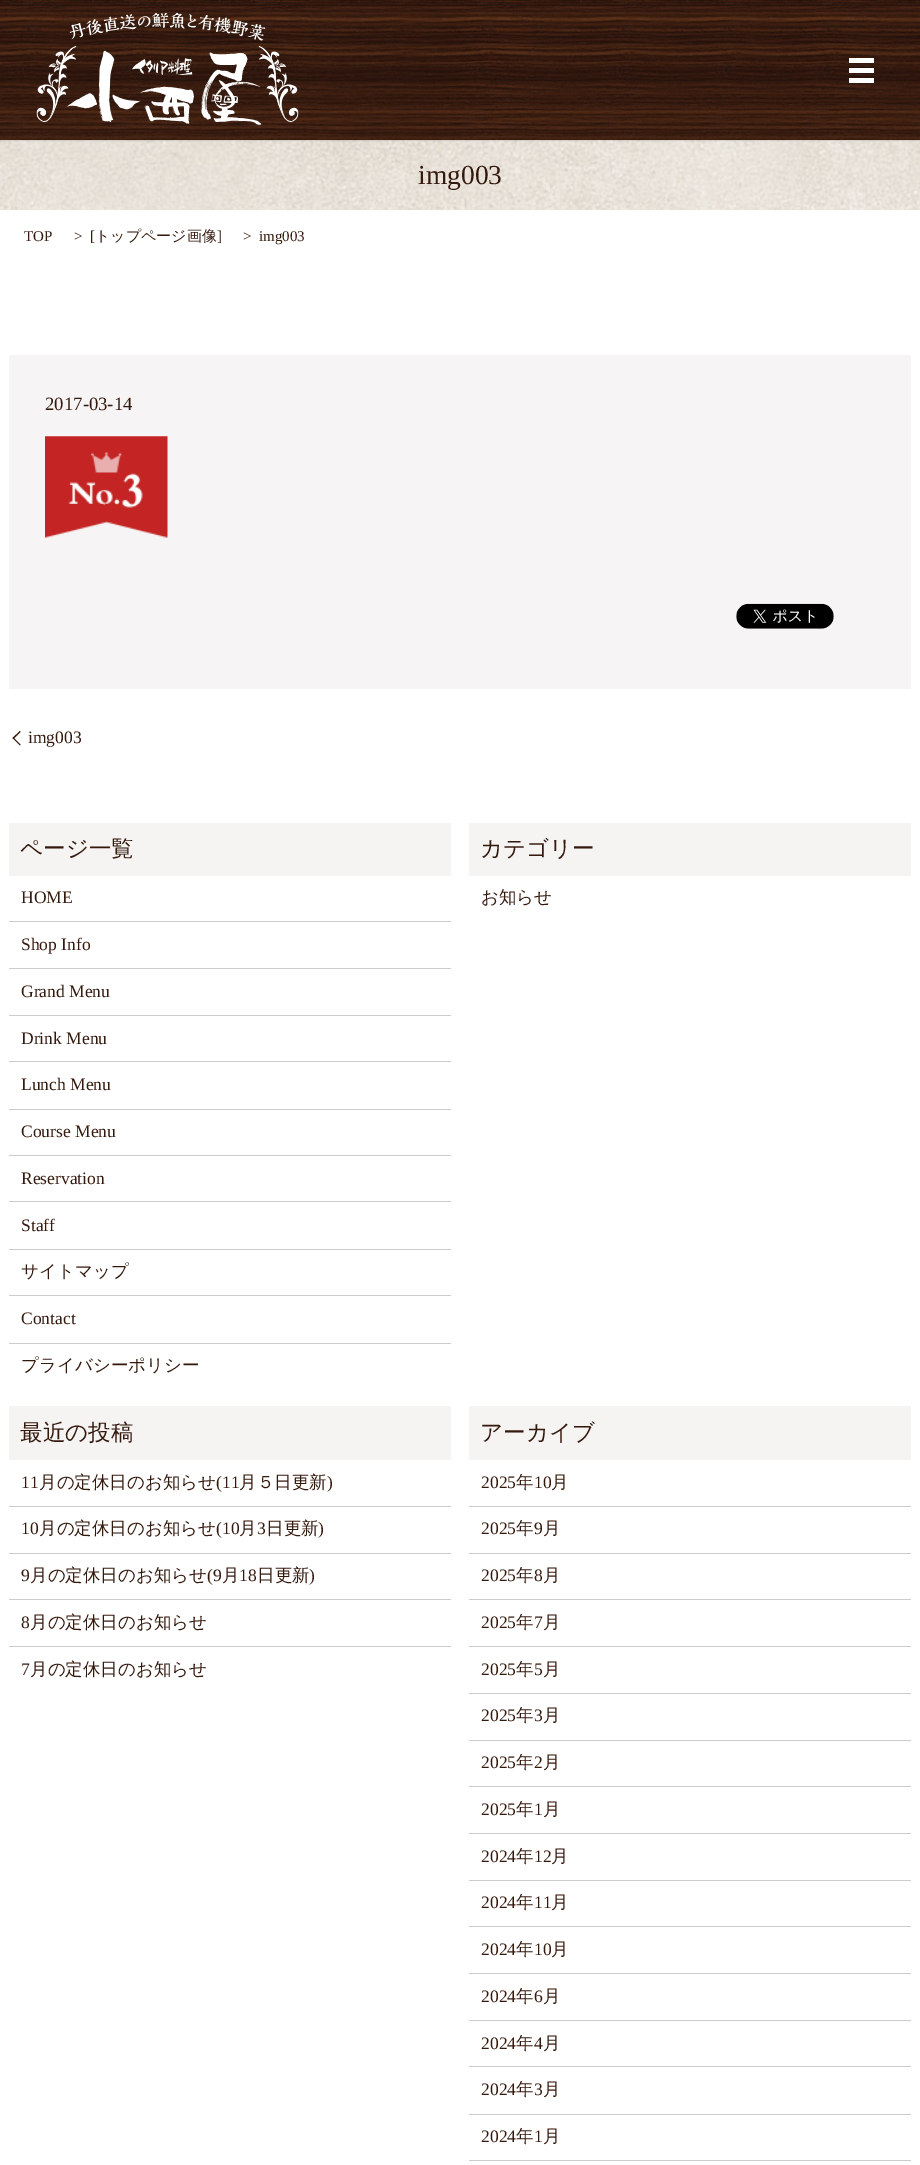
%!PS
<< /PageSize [920 2165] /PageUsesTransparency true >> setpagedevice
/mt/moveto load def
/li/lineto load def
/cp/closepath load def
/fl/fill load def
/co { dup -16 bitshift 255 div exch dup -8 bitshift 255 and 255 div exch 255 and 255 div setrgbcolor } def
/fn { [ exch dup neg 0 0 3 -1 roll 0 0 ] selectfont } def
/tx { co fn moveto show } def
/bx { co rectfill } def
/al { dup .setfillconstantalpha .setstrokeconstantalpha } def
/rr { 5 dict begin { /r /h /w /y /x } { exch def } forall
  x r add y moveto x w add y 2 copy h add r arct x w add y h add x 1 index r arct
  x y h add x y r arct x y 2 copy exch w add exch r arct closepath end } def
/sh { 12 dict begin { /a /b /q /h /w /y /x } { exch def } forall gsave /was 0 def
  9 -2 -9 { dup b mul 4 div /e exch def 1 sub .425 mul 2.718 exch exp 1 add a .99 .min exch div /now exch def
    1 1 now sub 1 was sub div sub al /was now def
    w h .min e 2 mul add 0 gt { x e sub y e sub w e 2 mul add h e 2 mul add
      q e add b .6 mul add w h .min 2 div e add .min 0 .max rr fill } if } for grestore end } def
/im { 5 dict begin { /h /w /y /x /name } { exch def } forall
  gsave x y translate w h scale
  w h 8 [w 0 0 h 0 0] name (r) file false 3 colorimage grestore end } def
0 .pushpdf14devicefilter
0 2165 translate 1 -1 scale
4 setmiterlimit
0 0 920 2165 16#FFFFFF bx
(media/3.raw) 0 140 920 70 im
16#000000 co
0 1 920 140 0 .5 .1 sh
(media/1.raw) 0 0 920 140 im
(media/2.raw) 36 12 263 113 im
849 58 25 5 16#FFFFFF bx
849 68 25 5 16#FFFFFF bx
849 78 25 5 16#FFFFFF bx
9 355 902 334 16#F6F4F4 bx
(media/4.raw) 45 436 123 102 im
(media/5.raw) 736 603 98 26 im
16#34190D co
12.5 738 mt 20 731 li 20.5 732 li 13.5 739 li cp fl
20 745.5 mt 12.5 738 li 13.5 737.5 li 20.5 744.5 li cp fl
9 823 442 53 16#F5F4F3 bx
9 921 442 1 16#CCCCCC bx
9 968 442 1 16#CCCCCC bx
9 1015 442 1 16#CCCCCC bx
9 1061 442 1 16#CCCCCC bx
9 1109 442 1 16#CCCCCC bx
9 1155 442 1 16#CCCCCC bx
9 1201 442 1 16#CCCCCC bx
9 1249 442 1 16#CCCCCC bx
9 1295 442 1 16#CCCCCC bx
9 1343 442 1 16#CCCCCC bx
469 823 442 53 16#F5F4F3 bx
9 1406 442 54 16#F5F4F3 bx
9 1506 442 1 16#CCCCCC bx
9 1553 442 1 16#CCCCCC bx
9 1599 442 1 16#CCCCCC bx
9 1646 442 1 16#CCCCCC bx
469 1406 442 54 16#F5F4F3 bx
469 1506 442 1 16#CCCCCC bx
469 1553 442 1 16#CCCCCC bx
469 1599 442 1 16#CCCCCC bx
469 1646 442 1 16#CCCCCC bx
469 1693 442 1 16#CCCCCC bx
469 1740 442 1 16#CCCCCC bx
469 1786 442 1 16#CCCCCC bx
469 1833 442 1 16#CCCCCC bx
469 1880 442 1 16#CCCCCC bx
469 1926 442 1 16#CCCCCC bx
469 1973 442 1 16#CCCCCC bx
469 2020 442 1 16#CCCCCC bx
469 2066 442 1 16#CCCCCC bx
469 2114 442 1 16#CCCCCC bx
469 2160 442 1 16#CCCCCC bx
(img003) 418 184 /LiberationSerif-Regular 27.5 16#34190D tx
(TOP) 24 241 /LiberationSerif-Regular 15 16#34190D tx
(>) 74 241 /LiberationSerif-Regular 15 16#34190D tx
([) 90 241 /LiberationSerif-Regular 15 16#34190D tx
(トップページ画像) 95 241 /WenQuanYiZenHei-Medium 15 16#34190D tx
(]) 217 241 /LiberationSerif-Regular 15 16#34190D tx
(>) 243 241 /LiberationSerif-Regular 15 16#34190D tx
(img003) 259 241 /LiberationSerif-Regular 15 16#34190D tx
(2017-03-14) 45 410 /LiberationSerif-Regular 18.75 16#34190D tx
(img003) 28 743 /LiberationSerif-Regular 17.5 16#34190D tx
(ページ一覧) 20 856 /WenQuanYiZenHei-Medium 22.5 16#34190D tx
(HOME) 21 903 /LiberationSerif-Regular 17.5 16#34190D tx
(Shop Info) 21 950 /LiberationSerif-Regular 17.5 16#34190D tx
(Grand Menu) 21 997 /LiberationSerif-Regular 17.5 16#34190D tx
(Drink Menu) 21 1044 /LiberationSerif-Regular 17.5 16#34190D tx
(Lunch Menu) 21 1090 /LiberationSerif-Regular 17.5 16#34190D tx
(Course Menu) 21 1137 /LiberationSerif-Regular 17.5 16#34190D tx
(Reservation) 21 1184 /LiberationSerif-Regular 17.5 16#34190D tx
(Staff) 21 1231 /LiberationSerif-Regular 17.5 16#34190D tx
(サイトマップ) 21 1277 /WenQuanYiZenHei-Medium 17.5 16#34190D tx
(Contact) 21 1324 /LiberationSerif-Regular 17.5 16#34190D tx
(プライバシーポリシー) 21 1371 /WenQuanYiZenHei-Medium 17.5 16#34190D tx
(カテゴリー) 480 856 /WenQuanYiZenHei-Medium 22.5 16#34190D tx
(お知らせ) 481 903 /WenQuanYiZenHei-Medium 17.5 16#34190D tx
(最近の投稿) 20 1440 /WenQuanYiZenHei-Medium 22.5 16#34190D tx
(11) 21 1488 /LiberationSerif-Regular 17.5 16#34190D tx
(月の定休日のお知らせ) 39 1488 /WenQuanYiZenHei-Medium 17.5 16#34190D tx
(\(11) 216 1488 /LiberationSerif-Regular 17.5 16#34190D tx
(月５日更新) 239 1488 /WenQuanYiZenHei-Medium 17.5 16#34190D tx
(\)) 327 1488 /LiberationSerif-Regular 17.5 16#34190D tx
(10) 21 1534 /LiberationSerif-Regular 17.5 16#34190D tx
(月の定休日のお知らせ) 39 1534 /WenQuanYiZenHei-Medium 17.5 16#34190D tx
(\(10) 216 1534 /LiberationSerif-Regular 17.5 16#34190D tx
(月) 239 1534 /WenQuanYiZenHei-Medium 17.5 16#34190D tx
(3) 257 1534 /LiberationSerif-Regular 17.5 16#34190D tx
(日更新) 266 1534 /WenQuanYiZenHei-Medium 17.5 16#34190D tx
(\)) 318 1534 /LiberationSerif-Regular 17.5 16#34190D tx
(9) 21 1581 /LiberationSerif-Regular 17.5 16#34190D tx
(月の定休日のお知らせ) 30 1581 /WenQuanYiZenHei-Medium 17.5 16#34190D tx
(\(9) 207 1581 /LiberationSerif-Regular 17.5 16#34190D tx
(月) 222 1581 /WenQuanYiZenHei-Medium 17.5 16#34190D tx
(18) 239 1581 /LiberationSerif-Regular 17.5 16#34190D tx
(日更新) 257 1581 /WenQuanYiZenHei-Medium 17.5 16#34190D tx
(\)) 309 1581 /LiberationSerif-Regular 17.5 16#34190D tx
(8) 21 1628 /LiberationSerif-Regular 17.5 16#34190D tx
(月の定休日のお知らせ) 30 1628 /WenQuanYiZenHei-Medium 17.5 16#34190D tx
(7) 21 1675 /LiberationSerif-Regular 17.5 16#34190D tx
(月の定休日のお知らせ) 30 1675 /WenQuanYiZenHei-Medium 17.5 16#34190D tx
(アーカイブ) 480 1440 /WenQuanYiZenHei-Medium 22.5 16#34190D tx
(2025) 481 1488 /LiberationSerif-Regular 17.5 16#34190D tx
(年) 516 1488 /WenQuanYiZenHei-Medium 17.5 16#34190D tx
(10) 534 1488 /LiberationSerif-Regular 17.5 16#34190D tx
(月) 551 1488 /WenQuanYiZenHei-Medium 17.5 16#34190D tx
(2025) 481 1534 /LiberationSerif-Regular 17.5 16#34190D tx
(年) 516 1534 /WenQuanYiZenHei-Medium 17.5 16#34190D tx
(9) 534 1534 /LiberationSerif-Regular 17.5 16#34190D tx
(月) 543 1534 /WenQuanYiZenHei-Medium 17.5 16#34190D tx
(2025) 481 1581 /LiberationSerif-Regular 17.5 16#34190D tx
(年) 516 1581 /WenQuanYiZenHei-Medium 17.5 16#34190D tx
(8) 534 1581 /LiberationSerif-Regular 17.5 16#34190D tx
(月) 543 1581 /WenQuanYiZenHei-Medium 17.5 16#34190D tx
(2025) 481 1628 /LiberationSerif-Regular 17.5 16#34190D tx
(年) 516 1628 /WenQuanYiZenHei-Medium 17.5 16#34190D tx
(7) 534 1628 /LiberationSerif-Regular 17.5 16#34190D tx
(月) 543 1628 /WenQuanYiZenHei-Medium 17.5 16#34190D tx
(2025) 481 1675 /LiberationSerif-Regular 17.5 16#34190D tx
(年) 516 1675 /WenQuanYiZenHei-Medium 17.5 16#34190D tx
(5) 534 1675 /LiberationSerif-Regular 17.5 16#34190D tx
(月) 543 1675 /WenQuanYiZenHei-Medium 17.5 16#34190D tx
(2025) 481 1721 /LiberationSerif-Regular 17.5 16#34190D tx
(年) 516 1721 /WenQuanYiZenHei-Medium 17.5 16#34190D tx
(3) 534 1721 /LiberationSerif-Regular 17.5 16#34190D tx
(月) 543 1721 /WenQuanYiZenHei-Medium 17.5 16#34190D tx
(2025) 481 1768 /LiberationSerif-Regular 17.5 16#34190D tx
(年) 516 1768 /WenQuanYiZenHei-Medium 17.5 16#34190D tx
(2) 534 1768 /LiberationSerif-Regular 17.5 16#34190D tx
(月) 543 1768 /WenQuanYiZenHei-Medium 17.5 16#34190D tx
(2025) 481 1815 /LiberationSerif-Regular 17.5 16#34190D tx
(年) 516 1815 /WenQuanYiZenHei-Medium 17.5 16#34190D tx
(1) 534 1815 /LiberationSerif-Regular 17.5 16#34190D tx
(月) 543 1815 /WenQuanYiZenHei-Medium 17.5 16#34190D tx
(2024) 481 1862 /LiberationSerif-Regular 17.5 16#34190D tx
(年) 516 1862 /WenQuanYiZenHei-Medium 17.5 16#34190D tx
(12) 534 1862 /LiberationSerif-Regular 17.5 16#34190D tx
(月) 551 1862 /WenQuanYiZenHei-Medium 17.5 16#34190D tx
(2024) 481 1908 /LiberationSerif-Regular 17.5 16#34190D tx
(年) 516 1908 /WenQuanYiZenHei-Medium 17.5 16#34190D tx
(11) 534 1908 /LiberationSerif-Regular 17.5 16#34190D tx
(月) 551 1908 /WenQuanYiZenHei-Medium 17.5 16#34190D tx
(2024) 481 1955 /LiberationSerif-Regular 17.5 16#34190D tx
(年) 516 1955 /WenQuanYiZenHei-Medium 17.5 16#34190D tx
(10) 534 1955 /LiberationSerif-Regular 17.5 16#34190D tx
(月) 551 1955 /WenQuanYiZenHei-Medium 17.5 16#34190D tx
(2024) 481 2002 /LiberationSerif-Regular 17.5 16#34190D tx
(年) 516 2002 /WenQuanYiZenHei-Medium 17.5 16#34190D tx
(6) 534 2002 /LiberationSerif-Regular 17.5 16#34190D tx
(月) 543 2002 /WenQuanYiZenHei-Medium 17.5 16#34190D tx
(2024) 481 2049 /LiberationSerif-Regular 17.5 16#34190D tx
(年) 516 2049 /WenQuanYiZenHei-Medium 17.5 16#34190D tx
(4) 534 2049 /LiberationSerif-Regular 17.5 16#34190D tx
(月) 543 2049 /WenQuanYiZenHei-Medium 17.5 16#34190D tx
(2024) 481 2095 /LiberationSerif-Regular 17.5 16#34190D tx
(年) 516 2095 /WenQuanYiZenHei-Medium 17.5 16#34190D tx
(3) 534 2095 /LiberationSerif-Regular 17.5 16#34190D tx
(月) 543 2095 /WenQuanYiZenHei-Medium 17.5 16#34190D tx
(2024) 481 2142 /LiberationSerif-Regular 17.5 16#34190D tx
(年) 516 2142 /WenQuanYiZenHei-Medium 17.5 16#34190D tx
(1) 534 2142 /LiberationSerif-Regular 17.5 16#34190D tx
(月) 543 2142 /WenQuanYiZenHei-Medium 17.5 16#34190D tx
.poppdf14devicefilter showpage
